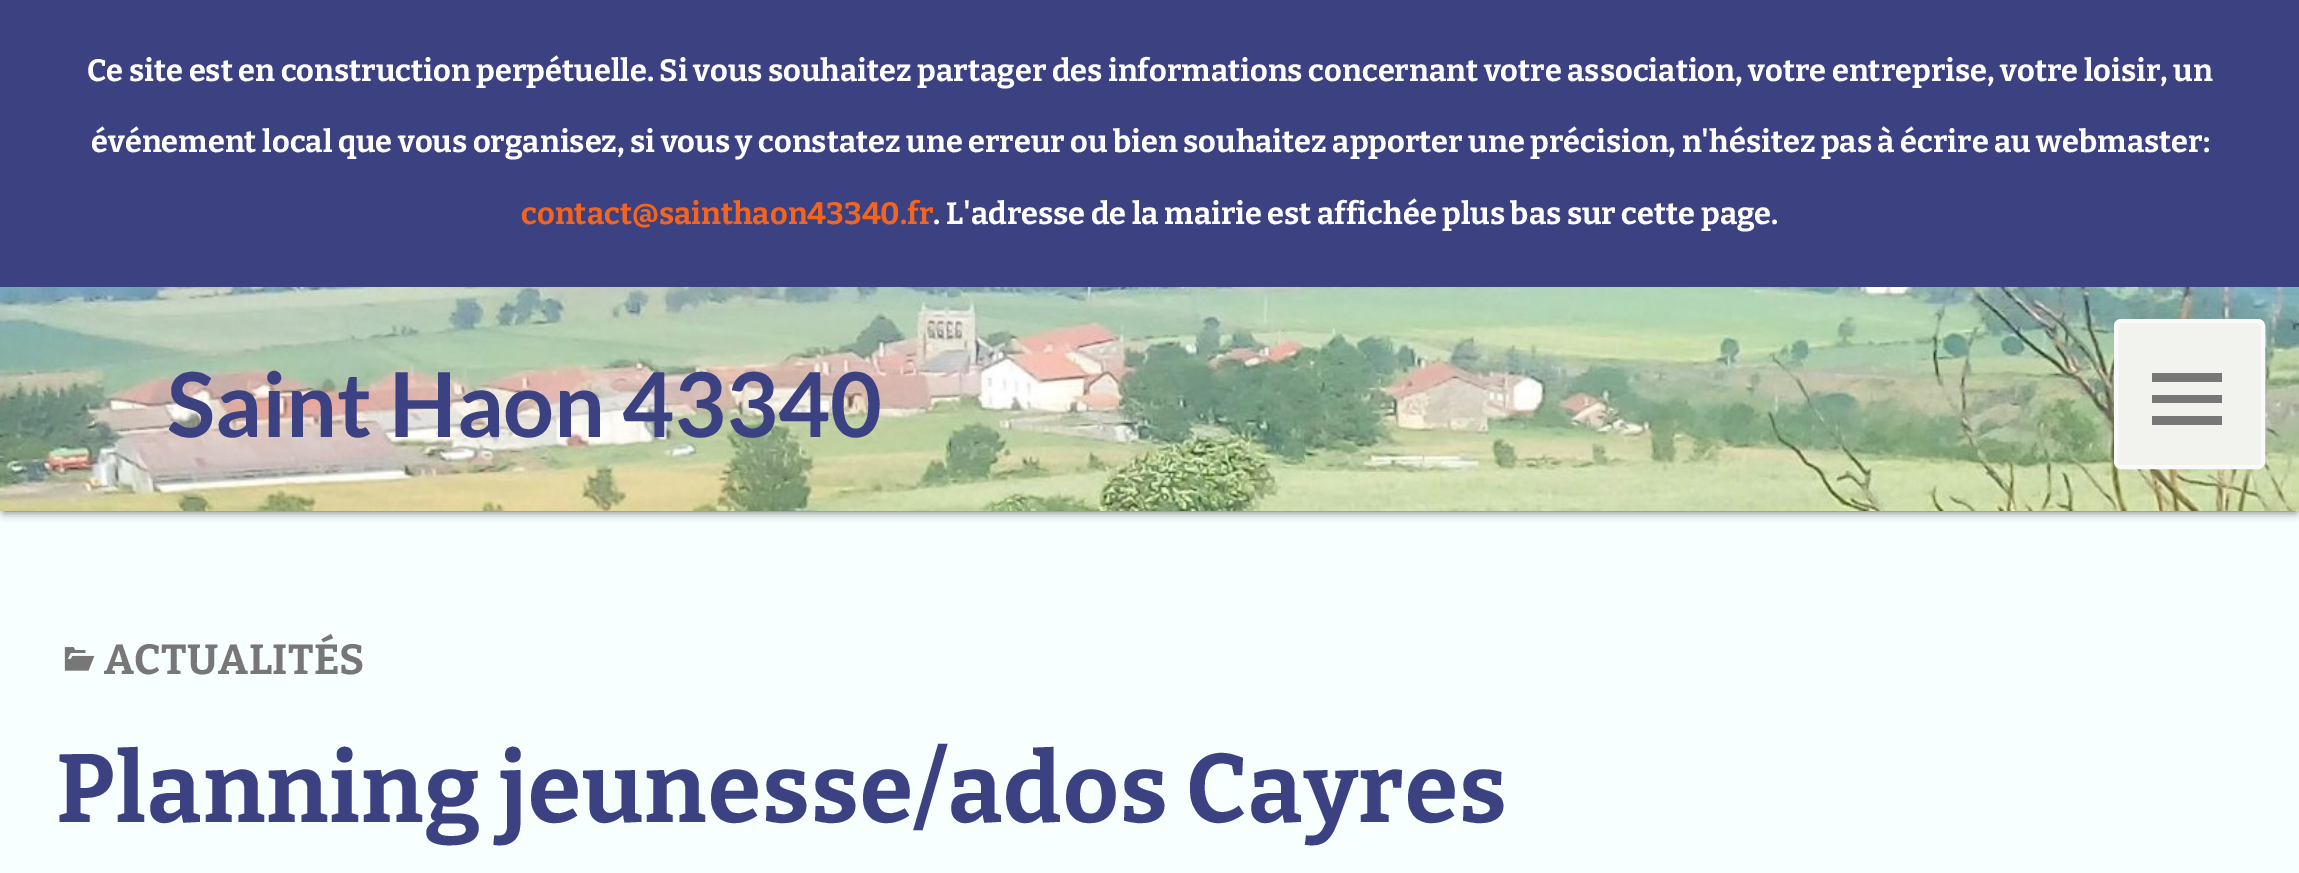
%!PS
<< /PageSize [2299 873] /PageUsesTransparency true >> setpagedevice
/mt/moveto load def
/li/lineto load def
/cp/closepath load def
/fl/fill load def
/st/stroke load def
/gs/gsave load def
/gr/grestore load def
/lw/setlinewidth load def
/co { dup -16 bitshift 255 div exch dup -8 bitshift 255 and 255 div exch 255 and 255 div setrgbcolor } def
/fn { [ exch dup neg 0 0 3 -1 roll 0 0 ] selectfont } def
/tx { co fn moveto show } def
/bx { co rectfill } def
/al { dup .setfillconstantalpha .setstrokeconstantalpha } def
/rr { 5 dict begin { /r /h /w /y /x } { exch def } forall
  x r add y moveto x w add y 2 copy h add r arct x w add y h add x 1 index r arct
  x y h add x y r arct x y 2 copy exch w add exch r arct closepath end } def
/sh { 12 dict begin { /a /b /q /h /w /y /x } { exch def } forall gsave /was 0 def
  9 -2 -9 { dup b mul 4 div /e exch def 1 sub .425 mul 2.718 exch exp 1 add a .99 .min exch div /now exch def
    1 1 now sub 1 was sub div sub al /was now def
    w h .min e 2 mul add 0 gt { x e sub y e sub w e 2 mul add h e 2 mul add
      q e add b .6 mul add w h .min 2 div e add .min 0 .max rr fill } if } for grestore end } def
/im { 5 dict begin { /h /w /y /x /name } { exch def } forall
  gsave x y translate w h scale
  w h 8 [w 0 0 h 0 0] name (r) file false 3 colorimage grestore end } def
0 .pushpdf14devicefilter
0 873 translate 1 -1 scale
4 setmiterlimit
0 0 2299 873 16#F7FFFF bx
16#3C4B44 co
4 294 2292 217 0 5 1 sh
0 0 2299 287 16#3C4182 bx
(media/1.raw) 0 287 2299 224 im
16#F2F2EF co
2116 321 147 146 5 rr gs fl gr
16#FAFAFA co
4 lw
st
16#777777 co
2152 425 mt 2152 416 li 2222 416 li 2222 425 li cp 2152 373 mt 2222 373 li 2222 382 li 2152 382 li cp 2152 403 mt 2152 395 li 2222 395 li 2222 403 li cp fl
(media/2.raw) 64 647 31 24 im
(Ce site est en construction perpétuelle. Si vous souhaitez partager des informations concernant votre association, votre entreprise, votre loisir, un) 87 81 /Bitter-Bold 30.8 16#FFFFFF tx
(événement local que vous organisez, si vous y constatez une erreur ou bien souhaitez apporter une précision, n'hésitez pas à écrire au webmaster:) 91 152 /Bitter-Bold 30.8 16#FFFFFF tx
(contact@sainthaon43340.fr) 521 224 /Bitter-Bold 30.8 16#F16521 tx
(. L'adresse de la mairie est affichée plus bas sur cette page.) 933 224 /Bitter-Bold 30.8 16#FFFFFF tx
(Saint Haon 43340) 167 437 /Lato-Bold 89.5 16#3C4182 tx
/Bitter-Bold 42 fn
16#777777 co
104 674 mt .25 0 (ACTUALITÉS) ashow
/Bitter-Bold 96.75 fn
16#3C4182 co
56 822 mt -1 0 32 1.1 0 (Planning jeunesse/ados Cayres) awidthshow
.poppdf14devicefilter showpage
